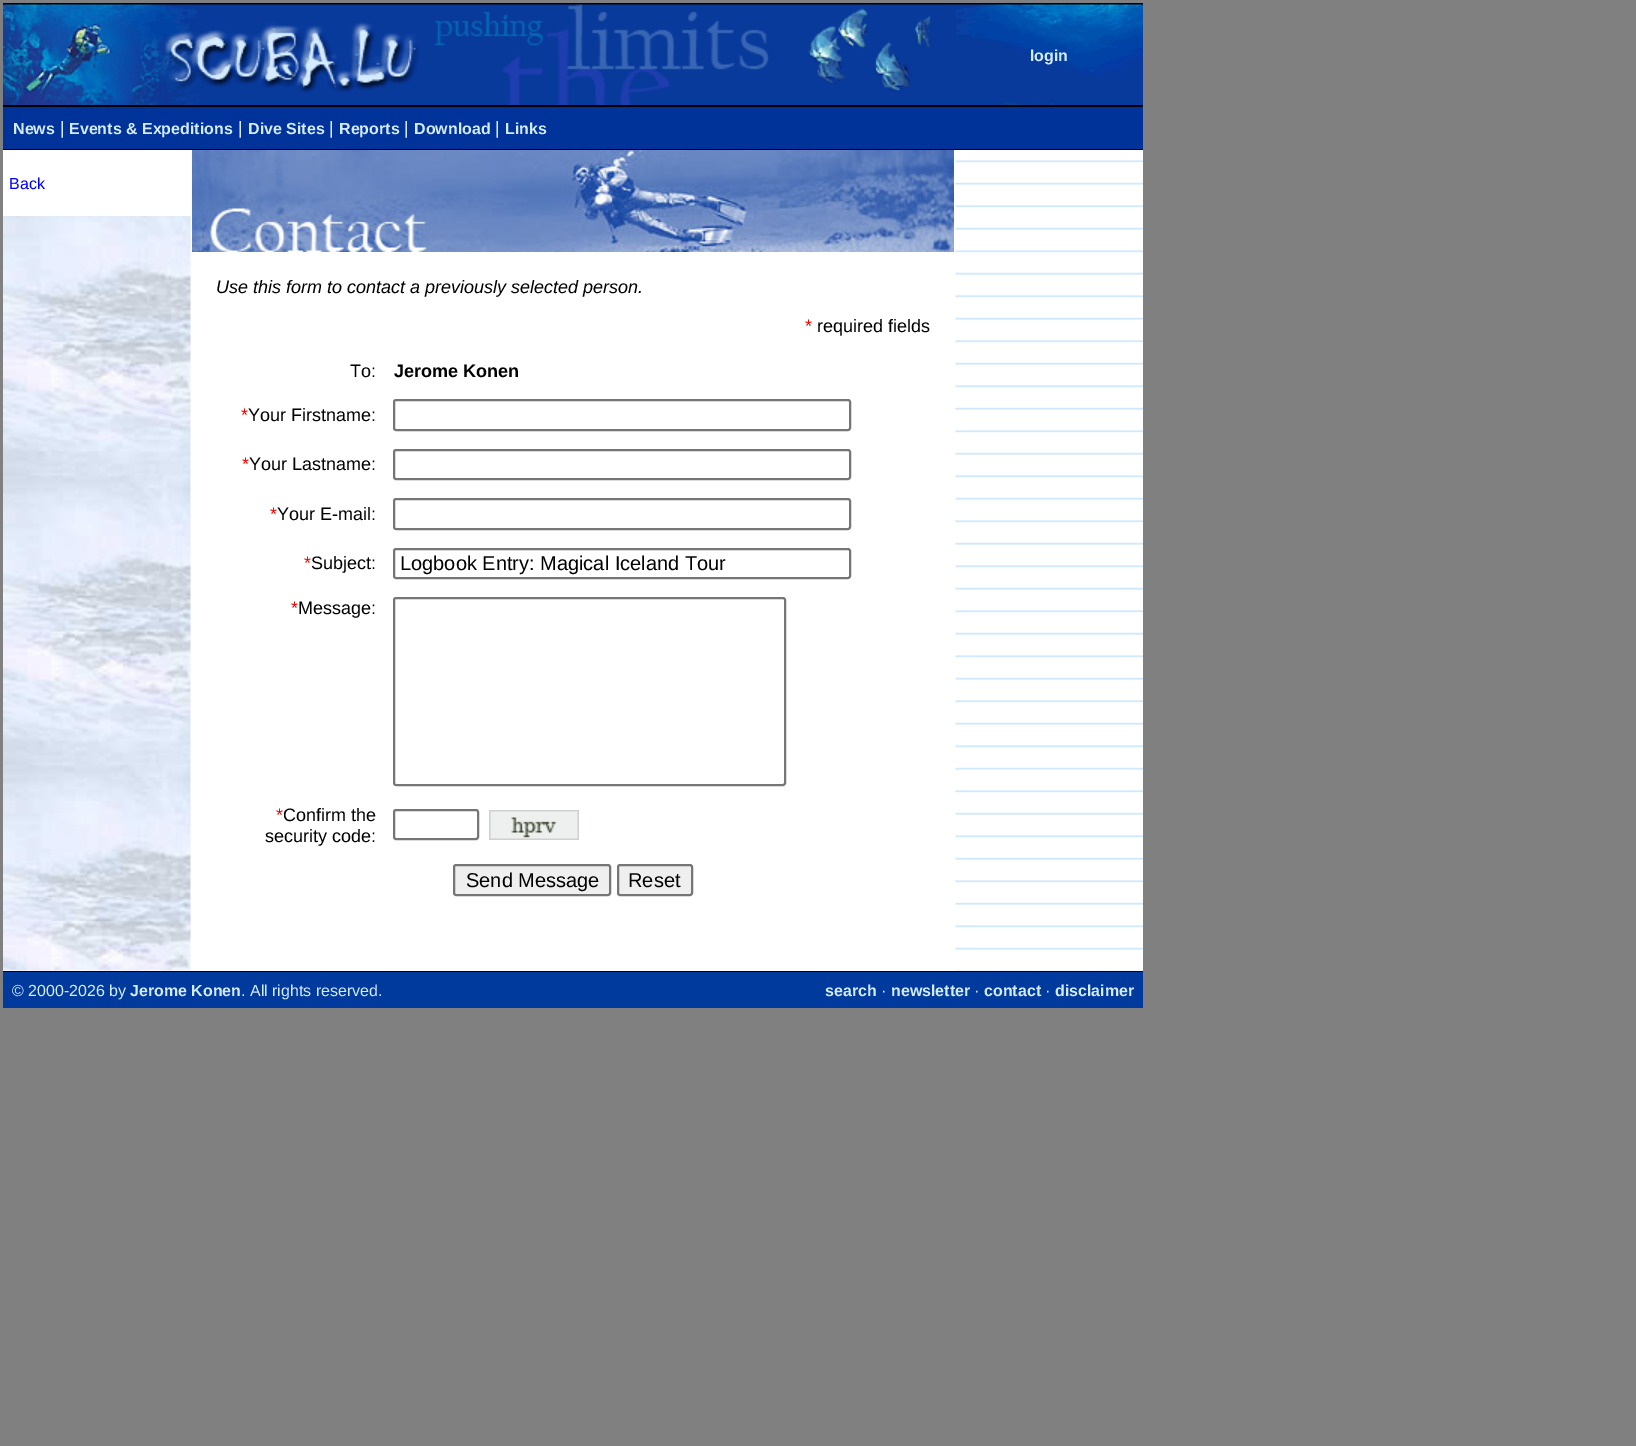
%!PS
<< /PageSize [1636 1446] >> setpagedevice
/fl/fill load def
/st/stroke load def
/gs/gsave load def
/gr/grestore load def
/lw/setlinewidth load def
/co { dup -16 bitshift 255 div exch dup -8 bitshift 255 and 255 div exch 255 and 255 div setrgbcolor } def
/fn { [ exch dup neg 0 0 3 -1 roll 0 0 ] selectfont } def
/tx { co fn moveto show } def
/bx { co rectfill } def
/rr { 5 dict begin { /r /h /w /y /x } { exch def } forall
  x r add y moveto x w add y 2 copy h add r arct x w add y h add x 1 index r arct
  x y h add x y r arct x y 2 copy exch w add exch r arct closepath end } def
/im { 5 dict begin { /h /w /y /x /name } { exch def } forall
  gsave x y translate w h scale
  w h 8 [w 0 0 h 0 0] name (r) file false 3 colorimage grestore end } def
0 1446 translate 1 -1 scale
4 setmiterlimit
0 0 1636 1446 16#808080 bx
3 3 1140 2 16#000000 bx
(media/2.raw) 955 4 188 101 im
(media/1.raw) 3 4 953 101 im
3 105 1140 2 16#000000 bx
3 107 1140 42 16#003399 bx
3 149 1140 1 16#000000 bx
3 150 1140 821 16#FFFFFF bx
(media/3.raw) 3 216 188 755 im
(media/4.raw) 955 160 188 811 im
(media/5.raw) 192 150 762 102 im
16#767676 co
2 lw
394 400 456 30 2 rr st
394 450 456 29 2 rr st
394 499 456 30 2 rr st
394 549 456 29 2 rr st
394 598 391 187 2 rr st
394 810 84 29 2 rr st
(media/6.raw) 489 810 90 30 im
16#EFEFEF co
454 865 156 30 2 rr gs fl gr
16#767676 co
st
16#EFEFEF co
618 865 74 30 2 rr gs fl gr
16#767676 co
st
3 971 1140 1 16#000000 bx
3 972 1140 36 16#003A9C bx
(login) 1030 61 /LiberationSans-Bold 16 16#D5EBFF tx
(News) 13 134 /LiberationSans-Bold 16 16#D5EBFF tx
(|) 60 134 /LiberationSans-Regular 18 16#D5EBFF tx
(Events & Expeditions) 69 134 /LiberationSans-Bold 16 16#D5EBFF tx
(|) 238 134 /LiberationSans-Regular 18 16#D5EBFF tx
(Dive Sites) 248 134 /LiberationSans-Bold 16 16#D5EBFF tx
(|) 329 134 /LiberationSans-Regular 18 16#D5EBFF tx
(Reports) 339 134 /LiberationSans-Bold 16 16#D5EBFF tx
(|) 404 134 /LiberationSans-Regular 18 16#D5EBFF tx
(Download) 414 134 /LiberationSans-Bold 16 16#D5EBFF tx
(|) 495 134 /LiberationSans-Regular 18 16#D5EBFF tx
(Links) 505 134 /LiberationSans-Bold 16 16#D5EBFF tx
(Back) 9 189 /LiberationSans-Regular 16 16#0000FF tx
(Use this form to contact a previously selected person.) 216 293 /LiberationSans-Italic 18 16#000000 tx
(*) 805 332 /LiberationSans-Regular 18 16#FF0000 tx
(required fields) 817 332 /LiberationSans-Regular 18 16#000000 tx
(To:) 350 377 /LiberationSans-Regular 18 16#000000 tx
(Jerome Konen) 394 377 /LiberationSans-Bold 18 16#000000 tx
(*) 241 421 /LiberationSans-Regular 18 16#FF0000 tx
(Your Firstname:) 248 421 /LiberationSans-Regular 18 16#000000 tx
(*) 242 470 /LiberationSans-Regular 18 16#FF0000 tx
(Your Lastname:) 249 470 /LiberationSans-Regular 18 16#000000 tx
(*) 270 520 /LiberationSans-Regular 18 16#FF0000 tx
(Your E-mail:) 277 520 /LiberationSans-Regular 18 16#000000 tx
(*) 304 569 /LiberationSans-Regular 18 16#FF0000 tx
(Subject:) 311 569 /LiberationSans-Regular 18 16#000000 tx
(Logbook Entry: Magical Iceland Tour) 400 570 /LiberationSans-Regular 20 16#000000 tx
(*) 291 614 /LiberationSans-Regular 18 16#FF0000 tx
(Message:) 298 614 /LiberationSans-Regular 18 16#000000 tx
(*) 276 821 /LiberationSans-Regular 18 16#FF0000 tx
(Confirm the) 283 821 /LiberationSans-Regular 18 16#000000 tx
(security code:) 265 842 /LiberationSans-Regular 18 16#000000 tx
(Send Message) 466 887 /LiberationSans-Regular 20 16#000000 tx
(Reset) 628 887 /LiberationSans-Regular 20 16#000000 tx
(© 2000-2026 by) 12 996 /LiberationSans-Regular 16 16#D5EBFF tx
(Jerome Konen) 130 996 /LiberationSans-Bold 16 16#D5EBFF tx
(. All rights reserved.) 241 996 /LiberationSans-Regular 16 16#D5EBFF tx
(search) 825 996 /LiberationSans-Bold 16 16#D5EBFF tx
(·) 881 996 /LiberationSans-Regular 16 16#D5EBFF tx
(newsletter) 891 996 /LiberationSans-Bold 16 16#D5EBFF tx
(·) 974 996 /LiberationSans-Regular 16 16#D5EBFF tx
(contact) 984 996 /LiberationSans-Bold 16 16#D5EBFF tx
(·) 1045 996 /LiberationSans-Regular 16 16#D5EBFF tx
(disclaimer) 1055 996 /LiberationSans-Bold 16 16#D5EBFF tx
showpage
